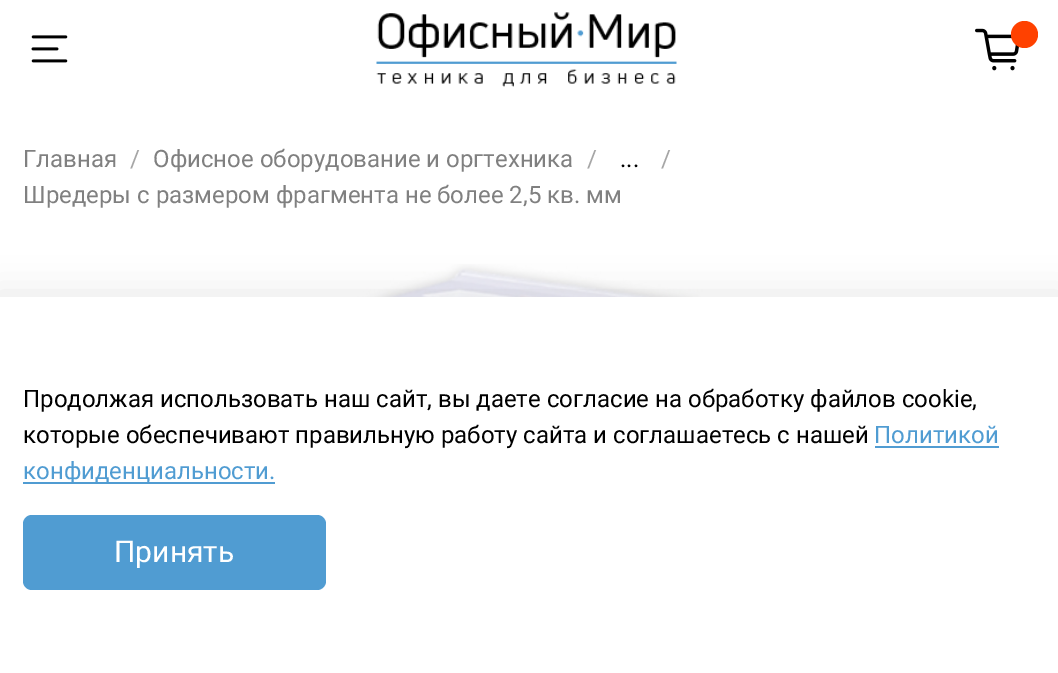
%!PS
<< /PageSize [1058 673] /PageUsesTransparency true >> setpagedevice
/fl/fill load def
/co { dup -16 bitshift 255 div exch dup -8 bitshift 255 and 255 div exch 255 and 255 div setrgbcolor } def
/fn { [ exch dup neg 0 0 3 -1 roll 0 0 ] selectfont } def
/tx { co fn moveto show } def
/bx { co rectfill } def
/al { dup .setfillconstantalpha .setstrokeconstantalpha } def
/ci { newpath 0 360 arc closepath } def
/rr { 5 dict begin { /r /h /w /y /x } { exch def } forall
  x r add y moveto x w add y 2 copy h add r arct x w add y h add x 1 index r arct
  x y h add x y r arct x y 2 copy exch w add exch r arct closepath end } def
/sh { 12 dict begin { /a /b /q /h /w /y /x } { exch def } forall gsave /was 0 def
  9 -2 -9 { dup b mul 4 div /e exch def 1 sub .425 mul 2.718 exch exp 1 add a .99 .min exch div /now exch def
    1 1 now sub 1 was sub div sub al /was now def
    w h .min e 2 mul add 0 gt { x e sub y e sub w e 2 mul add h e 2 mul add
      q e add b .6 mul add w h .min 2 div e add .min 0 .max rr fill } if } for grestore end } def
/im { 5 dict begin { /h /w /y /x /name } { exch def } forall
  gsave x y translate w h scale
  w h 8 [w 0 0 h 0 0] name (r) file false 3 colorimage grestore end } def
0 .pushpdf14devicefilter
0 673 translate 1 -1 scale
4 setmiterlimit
0 0 1058 673 16#FFFFFF bx
(media/1.raw) 31 35 37 28 im
(media/2.raw) 376 12 301 75 im
(media/3.raw) 975 28 44 43 im
16#FF4100 co
1024.5 34.5 13.5 ci fl
(media/4.raw) 355 264 352 33 im
16#000000 co
-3 293 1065 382 0 17 .09 sh
0 297 1058 376 16#FFFFFF bx
875 446 124 2 16#509CD2 bx
23 482 252 2 16#509CD2 bx
23 515 303 75 9 rr fl
(Главная) 23 167 /Roboto-Regular 24 16#808080 tx
(/) 130 167 /Roboto-Regular 24 16#A6A6A6 tx
(Офисное оборудование и оргтехника) 153 167 /Roboto-Regular 24 16#808080 tx
(/) 587 167 /Roboto-Regular 24 16#A6A6A6 tx
(...) 620 167 /Roboto-Regular 24 16#000000 tx
(/) 661 167 /Roboto-Regular 24 16#A6A6A6 tx
(Шредеры с размером фрагмента не более 2,5 кв. мм) 23 203 /Roboto-Regular 24 16#808080 tx
(Продолжая использовать наш сайт, вы даете согласие на обработку файлов cookie,) 23 407 /Roboto-Regular 24 16#000000 tx
(которые обеспечивают правильную работу сайта и соглашаетесь с нашей) 23 443 /Roboto-Regular 24 16#000000 tx
(Политикой) 874 443 /Roboto-Regular 24 16#509CD2 tx
(конфиденциальности.) 23 479 /Roboto-Regular 24 16#509CD2 tx
(Принять) 114 562 /Roboto-Regular 30 16#FFFFFF tx
.poppdf14devicefilter showpage
